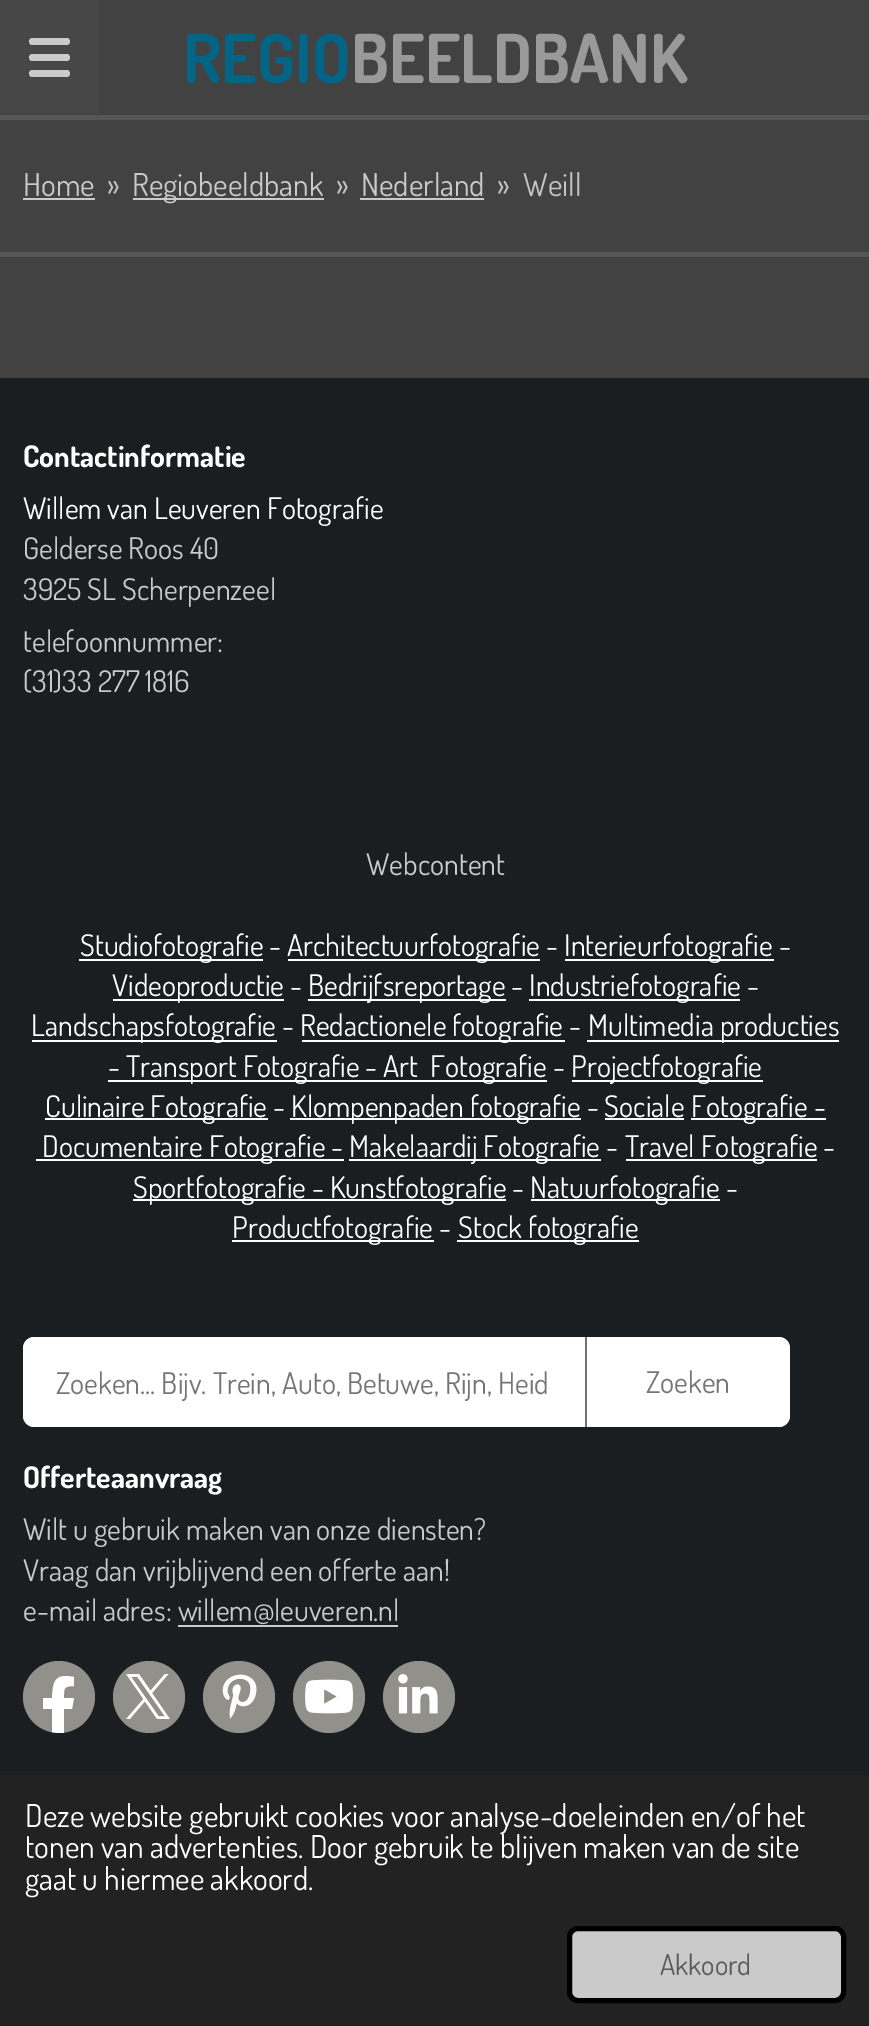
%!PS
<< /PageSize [869 2026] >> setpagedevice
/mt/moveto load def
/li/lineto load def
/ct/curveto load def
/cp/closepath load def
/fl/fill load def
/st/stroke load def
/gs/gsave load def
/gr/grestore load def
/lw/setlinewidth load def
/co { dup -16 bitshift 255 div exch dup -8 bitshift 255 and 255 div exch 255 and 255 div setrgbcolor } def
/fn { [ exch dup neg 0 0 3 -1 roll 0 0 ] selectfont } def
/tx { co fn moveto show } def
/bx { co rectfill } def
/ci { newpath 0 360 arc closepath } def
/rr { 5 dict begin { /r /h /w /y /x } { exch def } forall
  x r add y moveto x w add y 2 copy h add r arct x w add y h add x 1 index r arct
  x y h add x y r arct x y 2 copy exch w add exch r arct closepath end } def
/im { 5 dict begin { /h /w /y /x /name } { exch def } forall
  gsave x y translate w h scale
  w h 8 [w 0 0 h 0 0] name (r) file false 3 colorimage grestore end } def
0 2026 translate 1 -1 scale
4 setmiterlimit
0 0 869 2026 16#424242 bx
0 0 99 113 16#474747 bx
16#CACACA co
29 54 41 7 3.5 rr fl
29 38 41 7 3.5 rr fl
29 70 41 7 3.5 rr fl
0 115 869 5 16#555656 bx
0 252 869 5 16#555656 bx
23 198 72 2 16#CACACA bx
133 198 191 2 16#CACACA bx
360 198 124 2 16#CACACA bx
0 378 869 1397 16#1A1E21 bx
79 959 184 2 16#FFFFFF bx
288 959 252 2 16#FFFFFF bx
565 959 209 2 16#FFFFFF bx
113 999 171 2 16#FFFFFF bx
308 999 198 2 16#FFFFFF bx
529 999 211 2 16#FFFFFF bx
32 1040 245 2 16#FFFFFF bx
302 1040 263 2 16#FFFFFF bx
587 1040 252 2 16#FFFFFF bx
108 1080 439 2 16#FFFFFF bx
572 1080 191 2 16#FFFFFF bx
45 1118 223 2 16#FFFFFF bx
290 1118 291 2 16#FFFFFF bx
605 1118 79 2 16#FFFFFF bx
691 1118 135 2 16#FFFFFF bx
36 1159 308 2 16#FFFFFF bx
349 1159 252 2 16#FFFFFF bx
626 1159 191 2 16#FFFFFF bx
133 1199 373 2 16#FFFFFF bx
531 1199 189 2 16#FFFFFF bx
232 1240 202 2 16#FFFFFF bx
457 1240 182 2 16#FFFFFF bx
34 1337 mt 587 1337 li 587 1427 li 34 1427 li 28 1427 23 1422 23 1416 ct 23 1348 li 23 1342 28 1337 34 1337 ct cp fl
585 1337 2 90 16#737373 bx
16#FFFFFF co
587 1337 mt 779 1337 li 785 1337 790 1342 790 1348 ct 790 1416 li 790 1422 785 1427 779 1427 ct 587 1427 li cp fl
178 1625 220 2 16#CACACA bx
16#91908A co
59 1697 36 ci fl
16#FFFFFF co
72 1709 mt 64 1709 li 64 1733 li 60 1733 56 1733 52 1732 ct 52 1709 li 43 1709 li 43 1698 li 52 1698 li 53 1682 54 1673 74 1677 ct 74 1686 li 63 1686 64 1689 64 1698 ct 74 1698 li cp fl
16#91908A co
149 1697 36 ci fl
(media/1.raw) 126 1674 44 45 im
239 1697 36 ci fl
(media/2.raw) 222 1674 35 45 im
329 1697 36 ci fl
(media/3.raw) 305 1679 49 35 im
419 1697 36 ci fl
(media/4.raw) 398 1674 40 40 im
0 1775 869 251 16#222222 bx
16#CACACA co
569.5 1928.5 274 72 8.5 rr gs fl gr
16#000000 co
5 lw
st
(REGIO) 183 83 /Dosis-Bold 67.5 16#026585 tx
(BEELDBANK) 351 83 /Dosis-Bold 67.5 16#999999 tx
(Home) 23 196 /Dosis-Regular 31.5 16#CACACA tx
(») 107 196 /Dosis-Regular 31.5 16#C3C5C5 tx
(Regiobeeldbank) 132 196 /Dosis-Regular 31.5 16#CACACA tx
(») 336 196 /Dosis-Regular 31.5 16#C3C5C5 tx
(Nederland) 361 196 /Dosis-Regular 31.5 16#CACACA tx
(») 497 196 /Dosis-Regular 31.5 16#C3C5C5 tx
(Weill) 523 196 /Dosis-Regular 31.5 16#C3C5C5 tx
(Contactinformatie) 23 467 /Dosis-Bold 29.9 16#FFFFFF tx
(Willem van Leuveren Fotografie) 23 519 /Dosis-Regular 29.9 16#FFFFFF tx
(Gelderse Roos 40) 23 559 /Dosis-Regular 29.9 16#CACACA tx
(3925 SL Scherpenzeel) 23 600 /Dosis-Regular 29.9 16#CACACA tx
(telefoonnummer:) 23 652 /Dosis-Regular 29.9 16#CACACA tx
(\(31\)33 277 1816) 23 692 /Dosis-Regular 29.9 16#CACACA tx
(Webcontent) 366 875 /Dosis-Regular 29.9 16#CACACA tx
(Studiofotografie -) 80 956 /Dosis-Regular 29.9 16#FFFFFF tx
(Architectuurfotografie -) 287 956 /Dosis-Regular 29.9 16#FFFFFF tx
(Interieurfotografie -) 564 956 /Dosis-Regular 29.9 16#FFFFFF tx
(Videoproductie -) 112 996 /Dosis-Regular 29.9 16#FFFFFF tx
(Bedrijfsreportage - Industrie) 308 996 /Dosis-Regular 29.9 16#FFFFFF tx
(fotografie -) 630 996 /Dosis-Regular 29.9 16#FFFFFF tx
(Landschapsfotografie -) 31 1036 /Dosis-Regular 29.9 16#FFFFFF tx
(Redactionele fotografie -) 300 1036 /Dosis-Regular 29.9 16#FFFFFF tx
(Multimedia producties) 588 1036 /Dosis-Regular 29.9 16#FFFFFF tx
(- Transport Fotografie - Art) 108 1077 /Dosis-Regular 29.9 16#FFFFFF tx
(Fotografie -) 430 1077 /Dosis-Regular 29.9 16#FFFFFF tx
(Projectfotografie) 571 1077 /Dosis-Regular 29.9 16#FFFFFF tx
(Culinaire Fotografie -) 45 1117 /Dosis-Regular 29.9 16#FFFFFF tx
(Klompenpaden fotografie - Sociale) 291 1117 /Dosis-Regular 29.9 16#FFFFFF tx
(Fotografie -) 691 1117 /Dosis-Regular 29.9 16#FFFFFF tx
(Documentaire Fotografie -) 42 1157 /Dosis-Regular 29.9 16#FFFFFF tx
(Makelaardij Fotografie -) 349 1157 /Dosis-Regular 29.9 16#FFFFFF tx
(Travel Fotografie -) 625 1157 /Dosis-Regular 29.9 16#FFFFFF tx
(Sportfotografie - Kunstfotografie -) 133 1198 /Dosis-Regular 29.9 16#FFFFFF tx
(Natuurfotografie -) 530 1198 /Dosis-Regular 29.9 16#FFFFFF tx
(Productfotografie -) 232 1238 /Dosis-Regular 29.9 16#FFFFFF tx
(Stock fotografie) 458 1238 /Dosis-Regular 29.9 16#FFFFFF tx
(Zoeken... Bijv. Trein, Auto, Betuwe, Rijn, Heid) 56 1394 /Dosis-Regular 29.9 16#757575 tx
(Zoeken) 646 1393 /Dosis-Regular 29.9 16#757575 tx
(Offerteaanvraag) 23 1488 /Dosis-Bold 29.9 16#FFFFFF tx
(Wilt u gebruik maken van onze diensten?) 23 1540 /Dosis-Regular 29.9 16#CACACA tx
(Vraag dan vrijblijvend een offerte aan!) 23 1581 /Dosis-Regular 29.9 16#CACACA tx
(e-mail adres: willem@leuveren.nl) 23 1621 /Dosis-Regular 29.9 16#CACACA tx
(Deze website gebruikt cookies voor analyse-doeleinden en/of het) 25 1827 /Dosis-Regular 31.5 16#FFFFFF tx
(tonen van advertenties. Door gebruik te blijven maken van de site) 25 1858 /Dosis-Regular 31.5 16#FFFFFF tx
(gaat u hiermee akkoord.) 25 1890 /Dosis-Regular 31.5 16#FFFFFF tx
(Akkoord) 660 1975 /Dosis-Regular 28.5 16#5B5B5B tx
showpage
